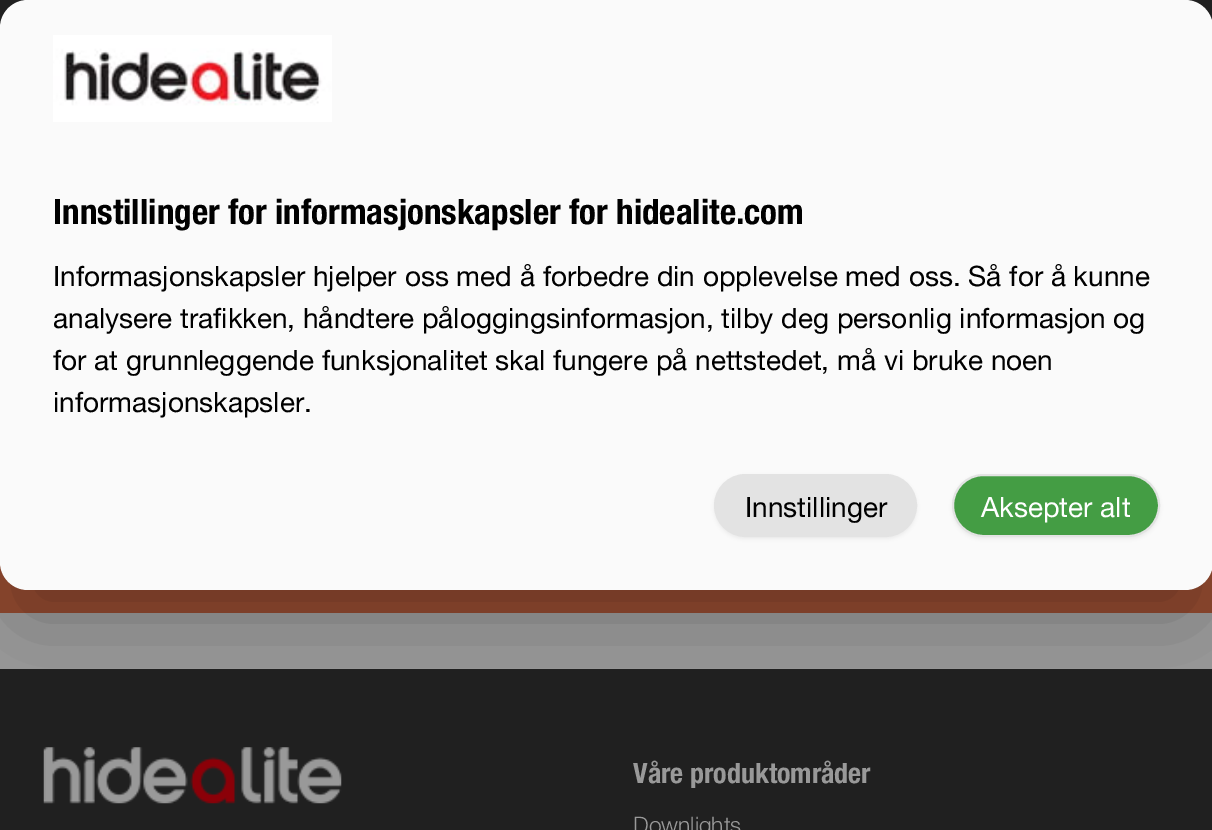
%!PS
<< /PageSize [1212 830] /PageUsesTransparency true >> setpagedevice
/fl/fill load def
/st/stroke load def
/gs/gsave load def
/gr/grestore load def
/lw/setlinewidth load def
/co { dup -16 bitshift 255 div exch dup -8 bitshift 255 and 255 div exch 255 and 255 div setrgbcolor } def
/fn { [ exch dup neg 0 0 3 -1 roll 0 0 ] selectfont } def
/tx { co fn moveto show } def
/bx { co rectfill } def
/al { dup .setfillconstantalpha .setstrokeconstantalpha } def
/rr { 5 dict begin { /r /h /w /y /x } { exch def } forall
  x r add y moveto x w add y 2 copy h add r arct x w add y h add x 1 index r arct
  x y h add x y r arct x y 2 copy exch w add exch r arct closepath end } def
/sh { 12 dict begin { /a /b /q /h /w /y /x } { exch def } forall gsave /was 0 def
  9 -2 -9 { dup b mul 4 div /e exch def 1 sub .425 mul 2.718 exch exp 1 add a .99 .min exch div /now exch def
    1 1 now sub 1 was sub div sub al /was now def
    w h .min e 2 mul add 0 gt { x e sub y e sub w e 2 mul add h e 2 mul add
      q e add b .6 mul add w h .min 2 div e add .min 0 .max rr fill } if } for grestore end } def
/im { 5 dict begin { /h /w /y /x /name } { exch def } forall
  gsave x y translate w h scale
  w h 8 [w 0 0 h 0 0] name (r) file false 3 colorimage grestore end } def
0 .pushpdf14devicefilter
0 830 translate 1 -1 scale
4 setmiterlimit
0 0 1212 830 16#999999 bx
0 0 1212 28 16#202020 bx
(media/2.raw) 0 562 1212 51 im
0 669 1212 161 16#202020 bx
16#000000 co
21 65 1171 548 7 44 .25 sh
16#FAFAFA co
0 0 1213 590 28 rr fl
(media/1.raw) 53 35 279 87 im
16#000000 co
714 476 203 63 31.5 2 .05 sh
16#E3E3E3 co
715 475 201 61 30.5 rr gs fl gr
2 lw
st
16#000000 co
952 476 208 63 31.5 2 .05 sh
16#449D44 co
953 475 206 61 30.5 rr gs fl gr
16#E3E3E3 co
st
(media/3.raw) 43 747 299 57 im
(Innstillinger for informasjonskapsler for hidealite.com) 53 224 /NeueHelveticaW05-Bold 35 16#000000 tx
(Informasjonskapsler hjelper oss med å forbedre din opplevelse med oss. Så for å kunne) 53 286 /NeueHelveticaW05-Regular 28 16#000000 tx
(analysere trafikken, håndtere påloggingsinformasjon, tilby deg personlig informasjon og) 53 328 /NeueHelveticaW05-Regular 28 16#000000 tx
(for at grunnleggende funksjonalitet skal fungere på nettstedet, må vi bruke noen) 53 370 /NeueHelveticaW05-Regular 28 16#000000 tx
(informasjonskapsler.) 53 412 /NeueHelveticaW05-Regular 28 16#000000 tx
(Innstillinger) 745 517 /NeueHelveticaW05-Regular 28 16#000000 tx
(Aksepter alt) 981 517 /NeueHelveticaW05-Regular 28 16#FFFFFF tx
(Våre produktområder) 633 783 /NeueHelveticaW05-Bold 28 16#999999 tx
(Downlights) 633 833 /NeueHelveticaW05-Light 22.75 16#999999 tx
.poppdf14devicefilter showpage
